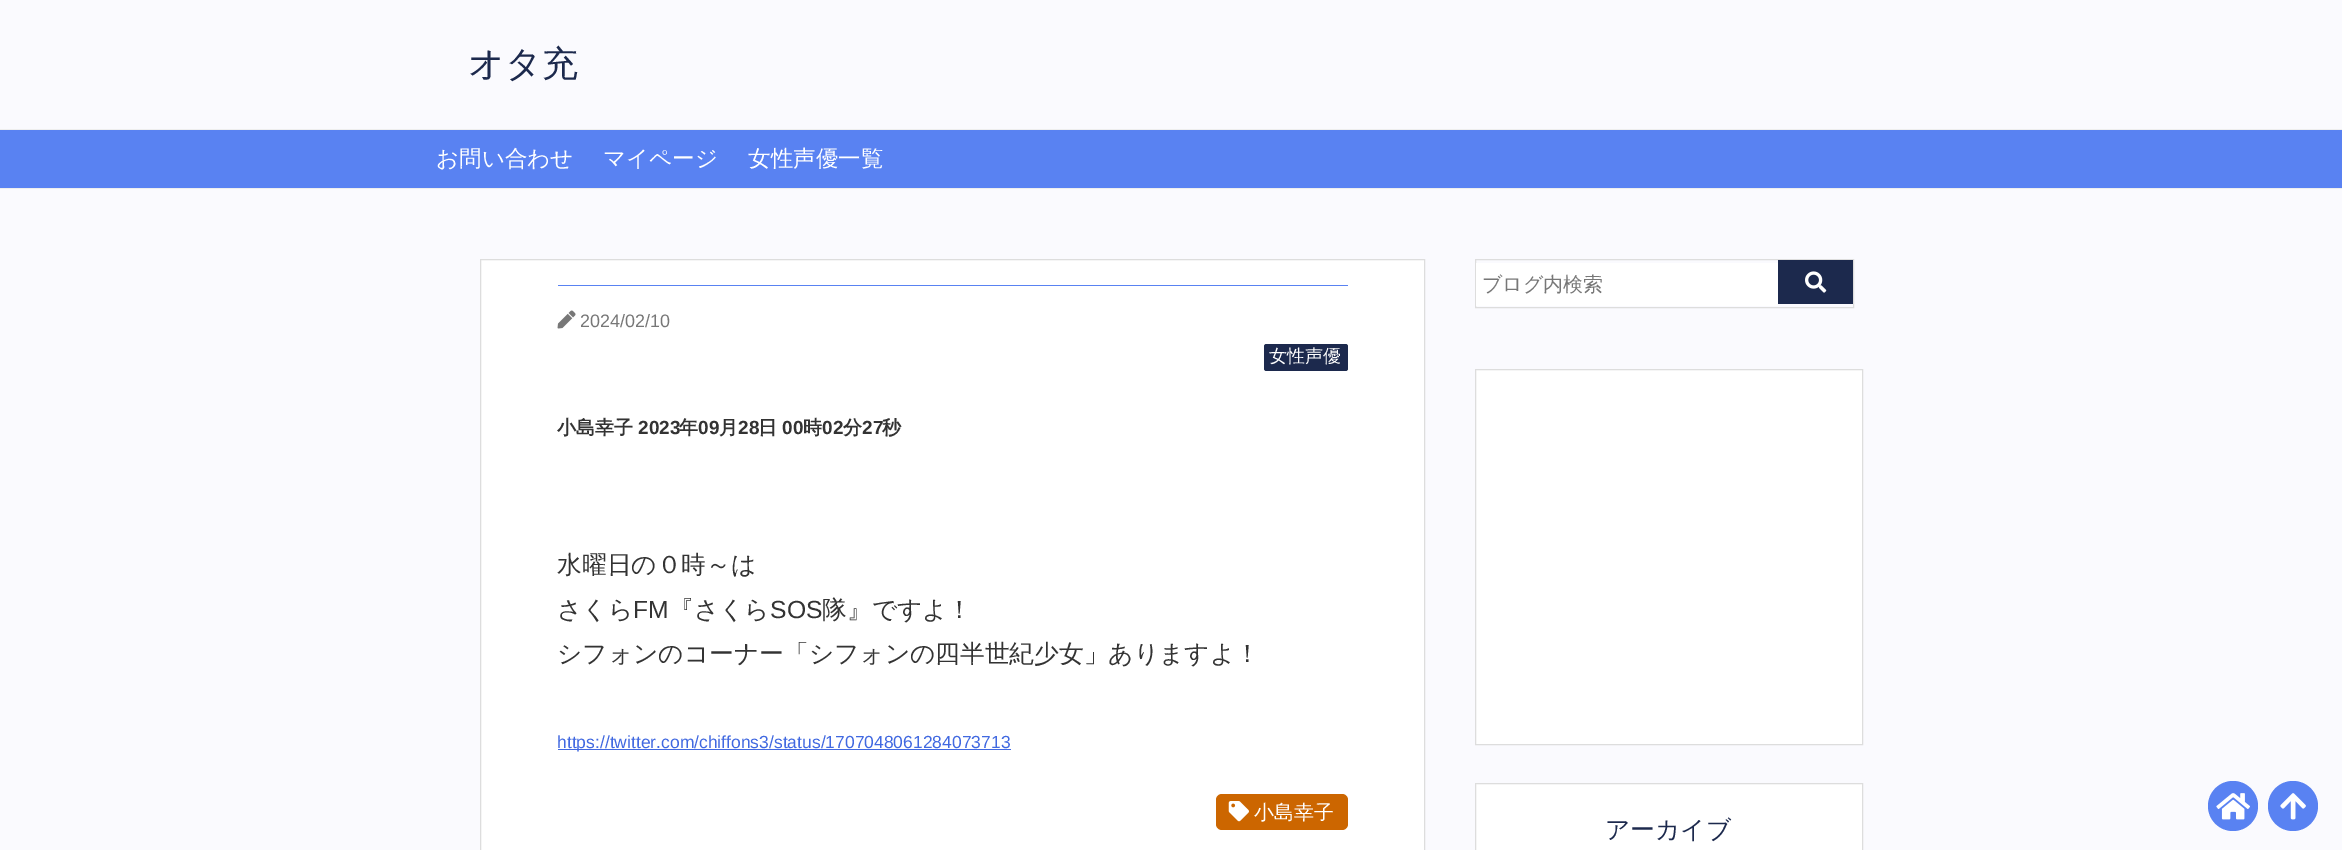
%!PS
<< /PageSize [2342 850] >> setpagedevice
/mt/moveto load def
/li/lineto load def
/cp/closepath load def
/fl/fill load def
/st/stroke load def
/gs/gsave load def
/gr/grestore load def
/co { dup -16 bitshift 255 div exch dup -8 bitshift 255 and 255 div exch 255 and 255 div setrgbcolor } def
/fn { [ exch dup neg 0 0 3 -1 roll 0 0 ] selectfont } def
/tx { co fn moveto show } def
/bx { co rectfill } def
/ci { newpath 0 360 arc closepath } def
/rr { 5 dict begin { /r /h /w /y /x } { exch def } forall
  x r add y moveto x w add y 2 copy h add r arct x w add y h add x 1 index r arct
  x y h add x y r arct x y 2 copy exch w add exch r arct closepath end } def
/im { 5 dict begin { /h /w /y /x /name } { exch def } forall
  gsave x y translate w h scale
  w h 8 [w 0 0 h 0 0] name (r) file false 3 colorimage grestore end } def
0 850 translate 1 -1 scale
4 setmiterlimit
0 0 2342 850 16#FAFAFE bx
0 130 2342 58 16#5982F2 bx
0 129 2342 1 16#EEEEEE bx
0 188 2342 1 16#EEEEEE bx
16#FFFFFF co
480.5 259.5 mt 1424.5 259.5 li 1424.5 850.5 li 480.5 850.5 li cp gs fl gr
16#DDDDDD co
st
558 285 790 1 16#5982F2 bx
(media/1.raw) 557 310 19 19 im
16#1C294D co
1264 344 84 27 2.5 rr fl
558 749 453 1 16#4169E1 bx
16#CC6600 co
1216 794 132 36 6 rr fl
(media/2.raw) 1228 801 21 21 im
16#DDDDDD co
1475.5 259.5 378 48 rectstroke
1476 263 302 43 16#FFFFFF bx
1778 260 75 44 16#1C294D bx
(media/3.raw) 1805 271 22 22 im
16#FFFFFF co
1475.5 369.5 mt 1862.5 369.5 li 1862.5 744.5 li 1475.5 744.5 li cp gs fl gr
16#DDDDDD co
st
16#FFFFFF co
1475.5 783.5 mt 1862.5 783.5 li 1862.5 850.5 li 1475.5 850.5 li cp gs fl gr
16#DDDDDD co
st
16#5982F2 co
2233 806 25 ci fl
(media/4.raw) 2216 793 34 27 im
2293 806 25 ci fl
(media/5.raw) 2280 793 26 27 im
(オタ充) 468 76 /WenQuanYiZenHei-Medium 36 16#1C294D tx
(お問い合わせ) 436 166 /WenQuanYiZenHei-Medium 22.5 16#FFFFFF tx
(マイページ) 603 166 /WenQuanYiZenHei-Medium 22.5 16#FFFFFF tx
(女性声優一覧) 748 166 /WenQuanYiZenHei-Medium 22.5 16#FFFFFF tx
(2024/02/10) 580 327 /LiberationSans-Regular 18 16#777777 tx
(女性声優) 1269 362 /WenQuanYiZenHei-Medium 18 16#FFFFFF tx
(小島幸子) 557 434 /WenQuanYiZenHei-Bold 19 16#333333 tx
(2023) 638 434 /LiberationSans-Bold 19 16#333333 tx
(年) 679 434 /WenQuanYiZenHei-Bold 19 16#333333 tx
(09) 698 434 /LiberationSans-Bold 19 16#333333 tx
(月) 719 434 /WenQuanYiZenHei-Bold 19 16#333333 tx
(28) 738 434 /LiberationSans-Bold 19 16#333333 tx
(日) 758 434 /WenQuanYiZenHei-Bold 19 16#333333 tx
(00) 782 434 /LiberationSans-Bold 19 16#333333 tx
(時) 803 434 /WenQuanYiZenHei-Bold 19 16#333333 tx
(02) 822 434 /LiberationSans-Bold 19 16#333333 tx
(分) 843 434 /WenQuanYiZenHei-Bold 19 16#333333 tx
(27) 862 434 /LiberationSans-Bold 19 16#333333 tx
(秒) 882 434 /WenQuanYiZenHei-Bold 19 16#333333 tx
(水曜日の０時～は) 557 573 /WenQuanYiZenHei-Medium 24.75 16#333333 tx
(さくら) 557 618 /WenQuanYiZenHei-Medium 24.75 16#333333 tx
(FM) 633 618 /LiberationSans-Regular 24.75 16#333333 tx
(『さくら) 669 618 /WenQuanYiZenHei-Medium 24.75 16#333333 tx
(SOS) 770 618 /LiberationSans-Regular 24.75 16#333333 tx
(隊』ですよ！) 822 618 /WenQuanYiZenHei-Medium 24.75 16#333333 tx
(シフォンのコーナー「シフォンの四半世紀少女」ありますよ！) 557 662 /WenQuanYiZenHei-Medium 24.75 16#333333 tx
(https://twitter.com/chiffons3/status/1707048061284073713) 557 748 /LiberationSans-Regular 17.5 16#4169E1 tx
(小島幸子) 1254 819 /WenQuanYiZenHei-Medium 20 16#FFFFFF tx
(ブログ内検索) 1482 291 /WenQuanYiZenHei-Medium 20 16#777777 tx
(アーカイブ) 1605 838 /WenQuanYiZenHei-Medium 24.75 16#1C294D tx
showpage
